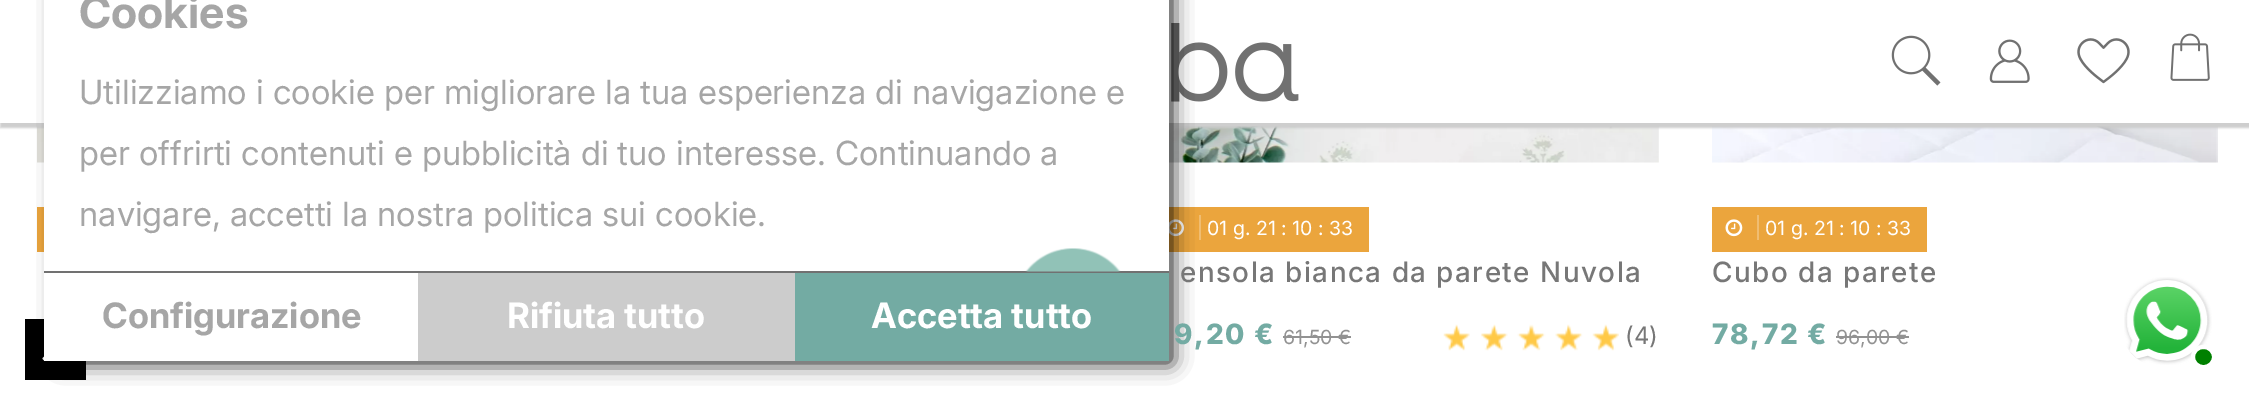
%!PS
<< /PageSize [2249 404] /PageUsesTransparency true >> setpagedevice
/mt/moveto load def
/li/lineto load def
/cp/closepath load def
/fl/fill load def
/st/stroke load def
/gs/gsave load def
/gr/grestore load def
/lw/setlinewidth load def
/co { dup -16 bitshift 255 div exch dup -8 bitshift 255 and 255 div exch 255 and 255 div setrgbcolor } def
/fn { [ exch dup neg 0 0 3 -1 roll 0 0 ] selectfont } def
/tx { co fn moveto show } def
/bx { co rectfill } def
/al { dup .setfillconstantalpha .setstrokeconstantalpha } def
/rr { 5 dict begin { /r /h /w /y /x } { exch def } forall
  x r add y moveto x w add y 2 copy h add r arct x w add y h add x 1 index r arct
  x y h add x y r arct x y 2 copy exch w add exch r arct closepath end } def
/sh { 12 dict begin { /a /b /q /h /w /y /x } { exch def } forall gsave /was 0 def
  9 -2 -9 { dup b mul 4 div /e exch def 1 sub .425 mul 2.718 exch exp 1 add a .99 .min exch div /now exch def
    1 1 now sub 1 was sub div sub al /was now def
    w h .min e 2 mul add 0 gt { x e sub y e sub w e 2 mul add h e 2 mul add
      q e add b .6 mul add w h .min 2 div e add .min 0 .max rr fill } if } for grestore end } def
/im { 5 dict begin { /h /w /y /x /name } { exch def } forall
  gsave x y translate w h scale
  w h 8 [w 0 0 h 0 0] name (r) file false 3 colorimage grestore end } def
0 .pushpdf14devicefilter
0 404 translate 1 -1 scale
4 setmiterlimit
0 0 2249 404 16#FFFFFF bx
25 319 61 61 16#000000 bx
(media/1.raw) 42 356 2 5 im
(media/9.raw) 37 126 7 37 im
(media/10.raw) 1169 126 490 37 im
(media/13.raw) 1712 126 506 37 im
gs
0 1 mt 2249 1 li 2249 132 li 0 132 li cp 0 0 mt 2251 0 li 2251 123 li 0 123 li cp eoclip newpath
16#CCCCCC co
0 5 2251 123 0 1 1 sh
gr
(media/4.raw) 1171 23 128 79 im
37 207 7 45 16#EBA53D bx
1169 207 200 45 16#EBA53D bx
1199 215 2 25 16#F0BD71 bx
(media/11.raw) 1169 219 15 18 im
16#000000 co
60 -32 1111 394 0 10.5 1 sh
44 0 1125 361 16#FFFFFF bx
44 271 1125 2 16#717171 bx
(media/2.raw) 1025 248 96 24 im
418 273 377 88 16#CCCCCC bx
795 273 374 88 16#73ABA3 bx
(media/3.raw) 2124 277 88 88 im
16#008000 co
2193 347 21 20 10 rr gs fl gr
16#FFFFFF co
4 lw
st
(media/5.raw) 1891 35 50 51 im
(media/6.raw) 1989 39 41 44 im
(media/7.raw) 2077 38 53 46 im
(media/8.raw) 2170 33 40 48 im
1283 336 68 2 16#929292 bx
(media/12.raw) 1443 324 176 27 im
1712 207 215 45 16#EBA53D bx
1757 215 2 25 16#F0BD71 bx
(media/14.raw) 1725 219 18 18 im
1836 336 73 2 16#929292 bx
(Cookies) 79 28 /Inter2-Bold 44 16#A6A6A6 tx
(Utilizziamo i cookie per migliorare la tua esperienza di navigazione e) 79 104 /Inter2-Regular 33.25 16#A6A6A6 tx
(per offrirti contenuti e pubblicità di tuo interesse. Continuando a) 79 165 /Inter2-Regular 33.25 16#A6A6A6 tx
(navigare, accetti la nostra politica sui cookie.) 79 226 /Inter2-Regular 33.25 16#A6A6A6 tx
(Configurazione) 102 328 /Inter-Bold 35 16#A6A6A6 tx
(Rifiuta tutto) 507 328 /Inter-Bold 35 16#FFFFFF tx
(Accetta tutto) 871 328 /Inter-Bold 35 16#FFFFFF tx
(01 g. 21 : 10 : 33) 1207 235 /Inter-Regular 19.5 16#FFFFFF tx
/Inter-Medium 28 fn
16#777777 co
1180 282 mt 1.5 0 (ensola bianca da parete Nuvola) ashow
/Inter-ExtraBold 28 fn
16#73ABA3 co
1174 344 mt 1.75 0 (9,20 €) ashow
(61,50 €) 1283 344 /Inter-Regular 19.5 16#929292 tx
(\(4\)) 1625 344 /Inter-Regular 24 16#777777 tx
(01 g. 21 : 10 : 33) 1765 235 /Inter-Regular 19.5 16#FFFFFF tx
/Inter-Medium 28 fn
16#777777 co
1712 282 mt 1.5 0 (Cubo da parete) ashow
/Inter-ExtraBold 28 fn
16#73ABA3 co
1712 344 mt 1.75 0 (78,72 €) ashow
(96,00 €) 1836 344 /Inter-Regular 19.5 16#929292 tx
.poppdf14devicefilter showpage
